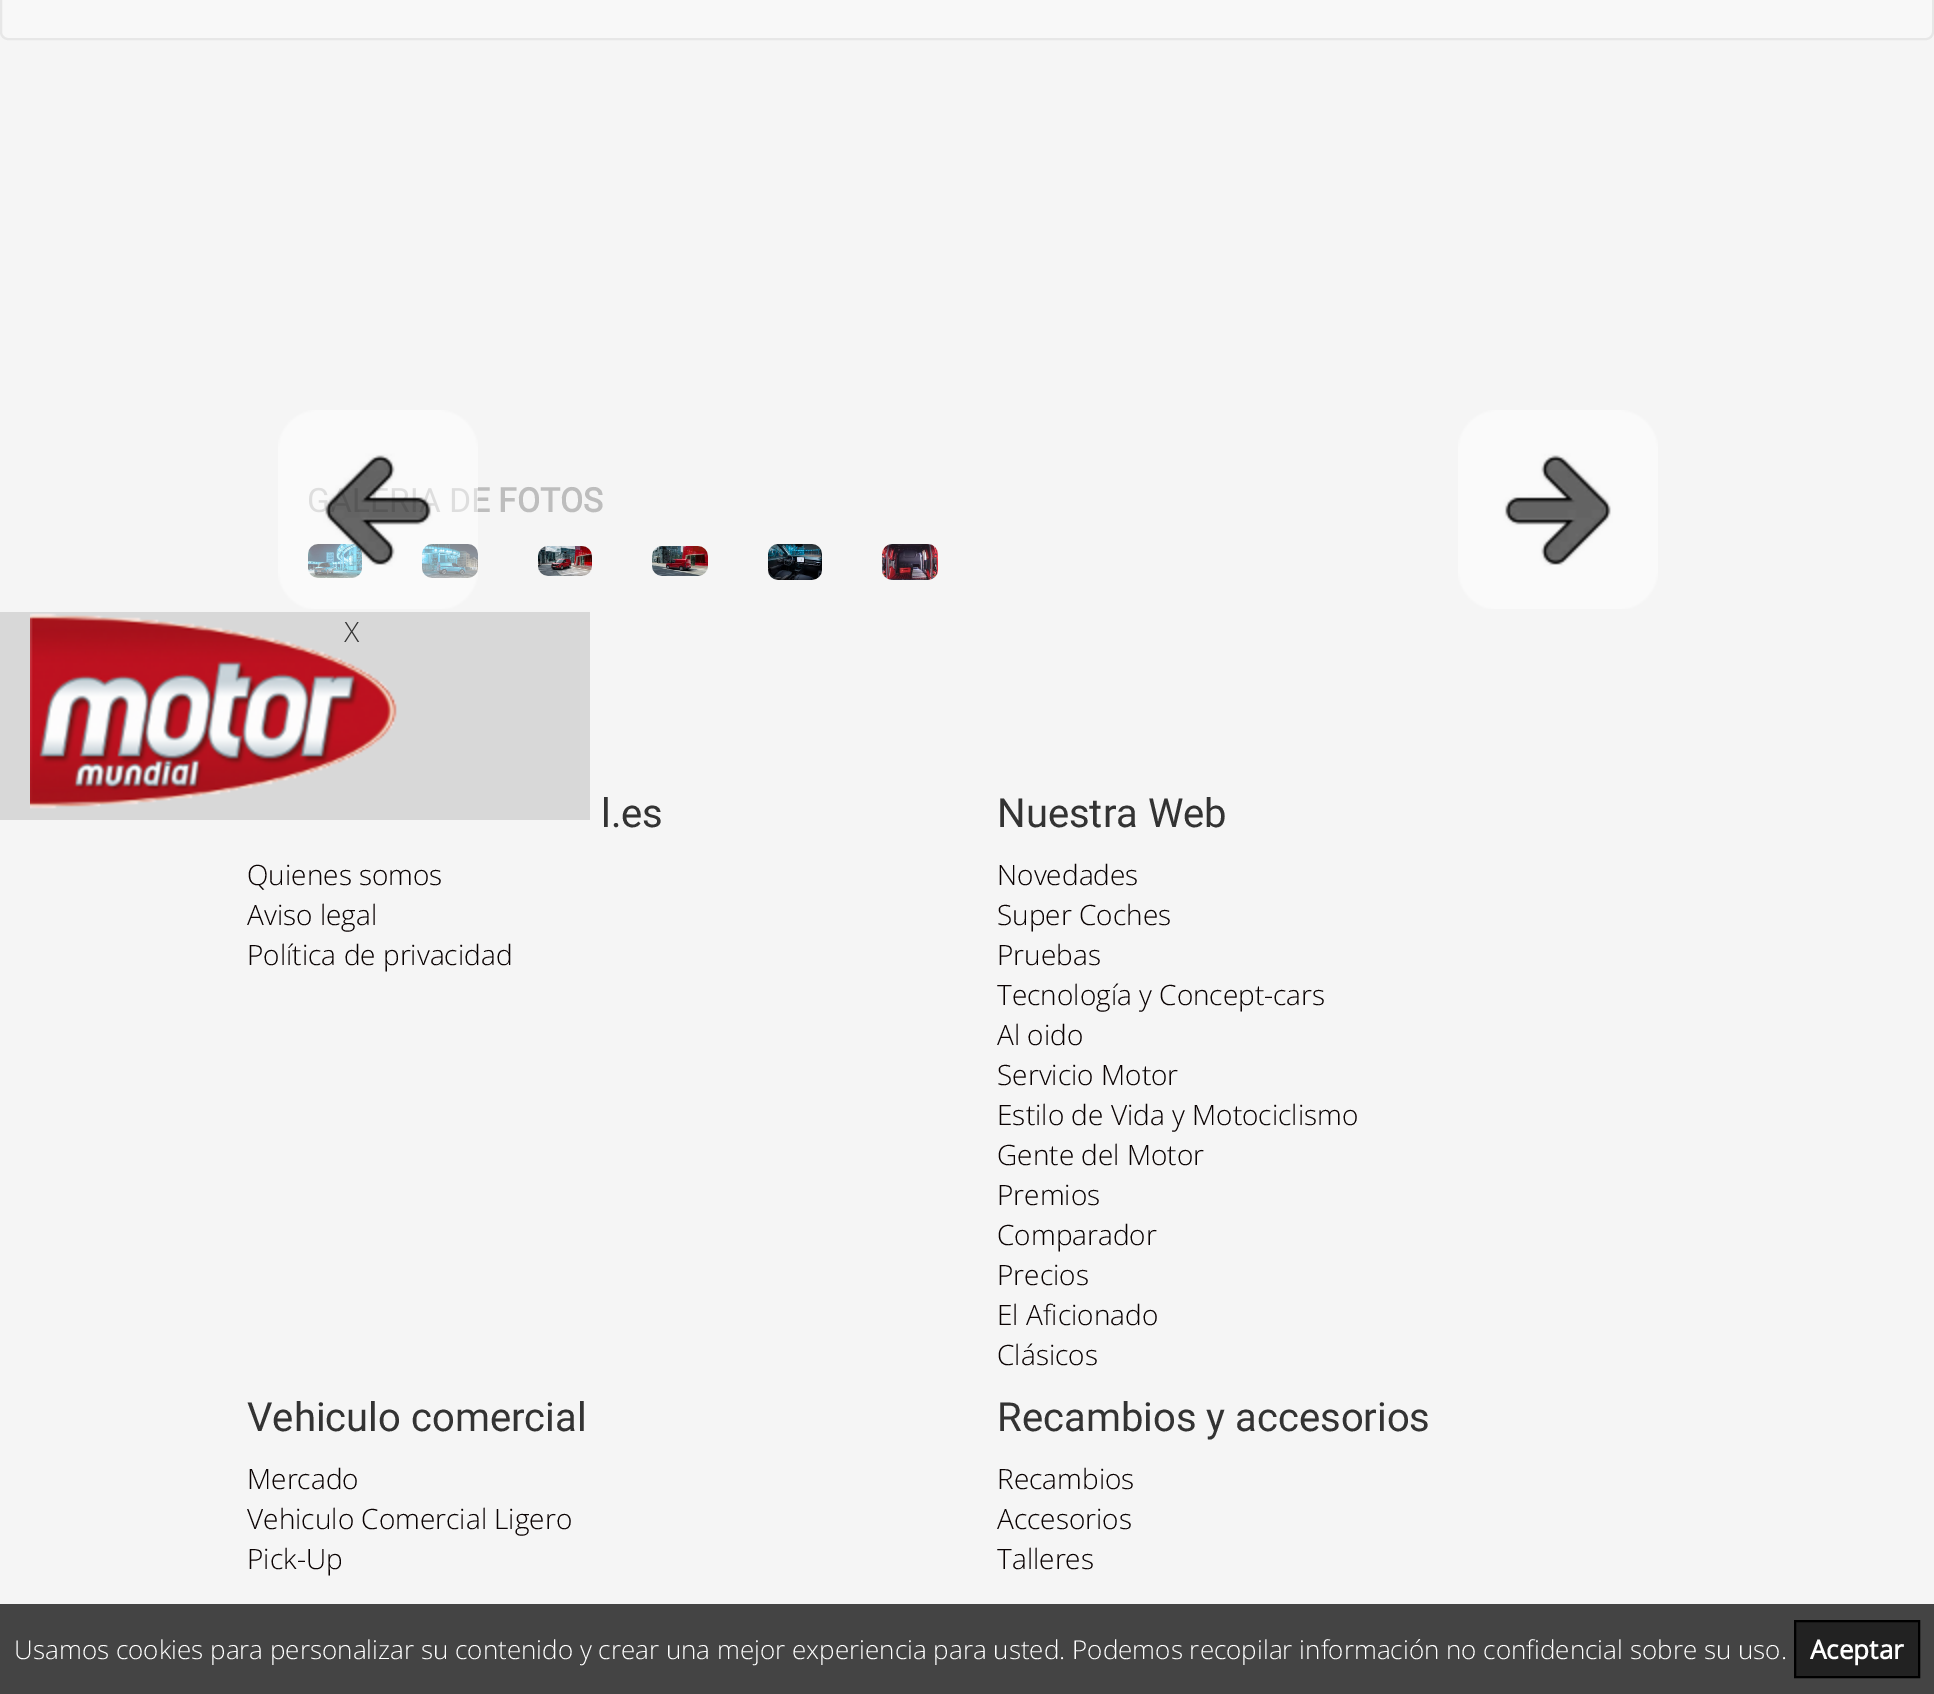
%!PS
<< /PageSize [1934 1694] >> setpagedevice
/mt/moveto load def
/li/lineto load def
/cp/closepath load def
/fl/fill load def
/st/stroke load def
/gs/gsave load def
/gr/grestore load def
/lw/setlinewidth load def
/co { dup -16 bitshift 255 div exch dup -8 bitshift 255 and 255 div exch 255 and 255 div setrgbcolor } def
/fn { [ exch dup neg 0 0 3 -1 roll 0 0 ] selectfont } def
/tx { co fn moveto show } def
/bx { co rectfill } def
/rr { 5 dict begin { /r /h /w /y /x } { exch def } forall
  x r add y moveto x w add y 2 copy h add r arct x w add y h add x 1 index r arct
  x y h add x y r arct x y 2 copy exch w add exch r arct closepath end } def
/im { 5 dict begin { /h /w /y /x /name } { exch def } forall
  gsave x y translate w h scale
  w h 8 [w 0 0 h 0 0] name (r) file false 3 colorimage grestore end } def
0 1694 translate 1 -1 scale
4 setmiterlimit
0 0 1934 1694 16#F5F5F5 bx
16#F8F8F8 co
1 -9 1932 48 7 rr gs fl gr
16#E7E7E7 co
2 lw
st
(media/2.raw) 1458 410 200 199 im
(media/3.raw) 308 544 54 34 im
(media/4.raw) 422 544 56 34 im
(media/5.raw) 538 546 54 30 im
(media/6.raw) 652 546 56 30 im
(media/7.raw) 768 544 54 36 im
(media/8.raw) 882 544 56 36 im
0 612 590 208 16#D8D8D8 bx
0 1604 1934 90 16#444444 bx
16#222222 co
1795 1621 mt 1919 1621 li 1919 1677 li 1795 1677 li cp gs fl gr
16#000000 co
st
(G) 307 512 /Roboto-Bold 33.5 16#BDBDBD tx
(DE FOTOS) 449 512 /Roboto-Bold 33.5 16#BDBDBD tx
(media/1.raw) 278 410 200 199 im
(X) 344 642 /OpenSans-Light 28 16#333333 tx
(media/9.raw) 30 613 367 196 im
(l.es) 601 827 /Roboto-Regular 40 16#333333 tx
(Quienes somos) 247 885 /OpenSans-Light 28 16#0A0202 tx
(Aviso legal) 247 925 /OpenSans-Light 28 16#0A0202 tx
(Política de privacidad) 247 965 /OpenSans-Light 28 16#0A0202 tx
(Nuestra Web) 997 827 /Roboto-Regular 40 16#333333 tx
(Novedades) 997 885 /OpenSans-Light 28 16#0A0202 tx
(Super Coches) 997 925 /OpenSans-Light 28 16#0A0202 tx
(Pruebas) 997 965 /OpenSans-Light 28 16#0A0202 tx
(Tecnología y Concept-cars) 997 1005 /OpenSans-Light 28 16#0A0202 tx
(Al oido) 997 1045 /OpenSans-Light 28 16#0A0202 tx
(Servicio Motor) 997 1085 /OpenSans-Light 28 16#0A0202 tx
(Estilo de Vida y Motociclismo) 997 1125 /OpenSans-Light 28 16#0A0202 tx
(Gente del Motor) 997 1165 /OpenSans-Light 28 16#0A0202 tx
(Premios) 997 1205 /OpenSans-Light 28 16#0A0202 tx
(Comparador) 997 1245 /OpenSans-Light 28 16#0A0202 tx
(Precios) 997 1285 /OpenSans-Light 28 16#0A0202 tx
(El Aficionado) 997 1325 /OpenSans-Light 28 16#0A0202 tx
(Clásicos) 997 1365 /OpenSans-Light 28 16#0A0202 tx
(Vehiculo comercial) 247 1431 /Roboto-Regular 40 16#333333 tx
(Mercado) 247 1489 /OpenSans-Light 28 16#0A0202 tx
(Vehiculo Comercial Ligero) 247 1529 /OpenSans-Light 28 16#0A0202 tx
(Pick-Up) 247 1569 /OpenSans-Light 28 16#0A0202 tx
(Recambios y accesorios) 997 1431 /Roboto-Regular 40 16#333333 tx
(Recambios) 997 1489 /OpenSans-Light 28 16#0A0202 tx
(Accesorios) 997 1529 /OpenSans-Light 28 16#0A0202 tx
(Talleres) 997 1569 /OpenSans-Light 28 16#0A0202 tx
(Usamos cookies para personalizar su contenido y crear una mejor experiencia para usted. Podemos recopilar información no confidencial sobre su uso.) 14 1659 /OpenSans-Light 26 16#FFFFFF tx
(Aceptar) 1810 1659 /OpenSans-Bold 26 16#FFFFFF tx
showpage
